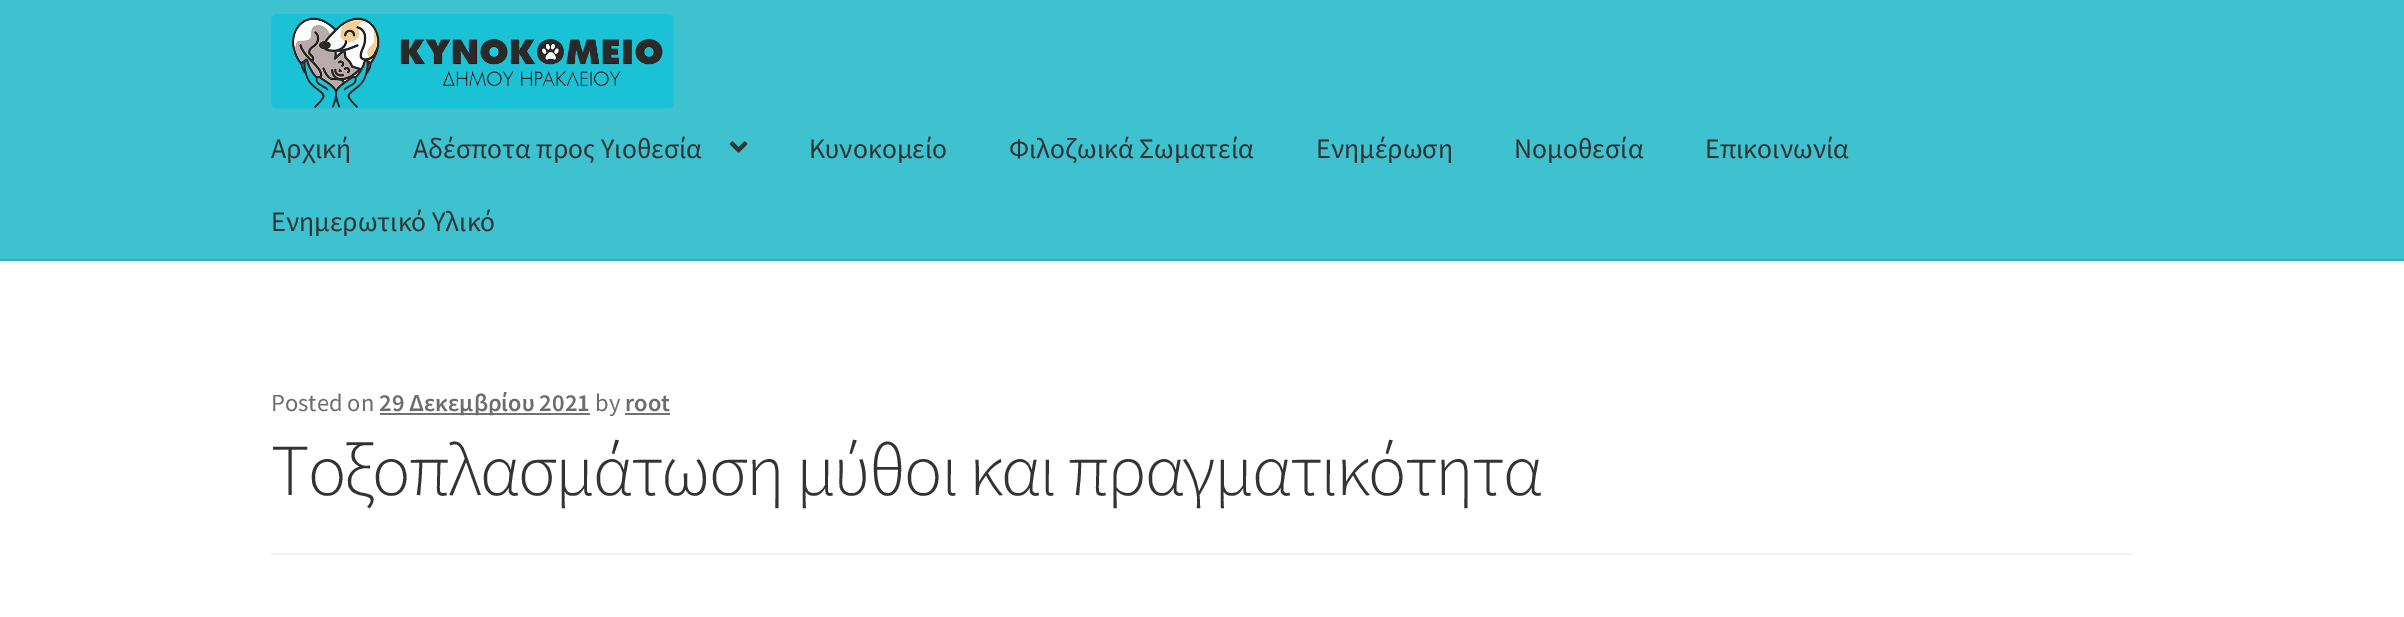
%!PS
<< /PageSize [2404 617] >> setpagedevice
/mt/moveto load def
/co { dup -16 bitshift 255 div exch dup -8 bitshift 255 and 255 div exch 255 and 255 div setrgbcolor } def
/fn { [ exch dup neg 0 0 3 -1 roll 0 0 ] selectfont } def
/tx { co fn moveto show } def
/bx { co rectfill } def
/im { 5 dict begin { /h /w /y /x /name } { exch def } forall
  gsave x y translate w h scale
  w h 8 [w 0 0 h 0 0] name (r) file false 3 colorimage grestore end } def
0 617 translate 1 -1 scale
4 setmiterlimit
0 0 2404 617 16#FFFFFF bx
0 0 2404 259 16#3EC2CF bx
0 259 2404 2 16#2FB3C0 bx
(media/1.raw) 271 14 403 95 im
(media/2.raw) 729 141 19 12 im
271 553 1862 2 16#F2F2F2 bx
380 413 210 2 16#727272 bx
625 413 45 2 16#727272 bx
(Αρχική) 271 158 /SourceSansPro-Regular 28 16#333333 tx
(Αδέσποτα προς Υιοθεσία) 413 158 /SourceSansPro-Regular 28 16#333333 tx
(Κυνοκομείο) 809 158 /SourceSansPro-Regular 28 16#333333 tx
(Φιλοζωικά Σωματεία) 1009 158 /SourceSansPro-Regular 28 16#333333 tx
(Ενημέρωση) 1316 158 /SourceSansPro-Regular 28 16#333333 tx
(Νομοθεσία) 1514 158 /SourceSansPro-Regular 28 16#333333 tx
(Επικοινωνία) 1705 158 /SourceSansPro-Regular 28 16#333333 tx
(Ενημερωτικό Υλικό) 271 231 /SourceSansPro-Regular 28 16#333333 tx
(Posted on) 271 411 /SourceSansPro-Regular 24.5 16#6D6D6D tx
(29 Δεκεμβρίου 2021) 379 411 /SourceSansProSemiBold-SemiBold 24.5 16#6D6D6D tx
(by) 595 411 /SourceSansPro-Regular 24.5 16#6D6D6D tx
(root) 625 411 /SourceSansProSemiBold-SemiBold 24.5 16#6D6D6D tx
/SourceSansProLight-Light 73.25 fn
16#333333 co
271 495 mt -1.75 0 (Τοξοπλασμάτωση μύθοι και πραγματικότητα) ashow
showpage
